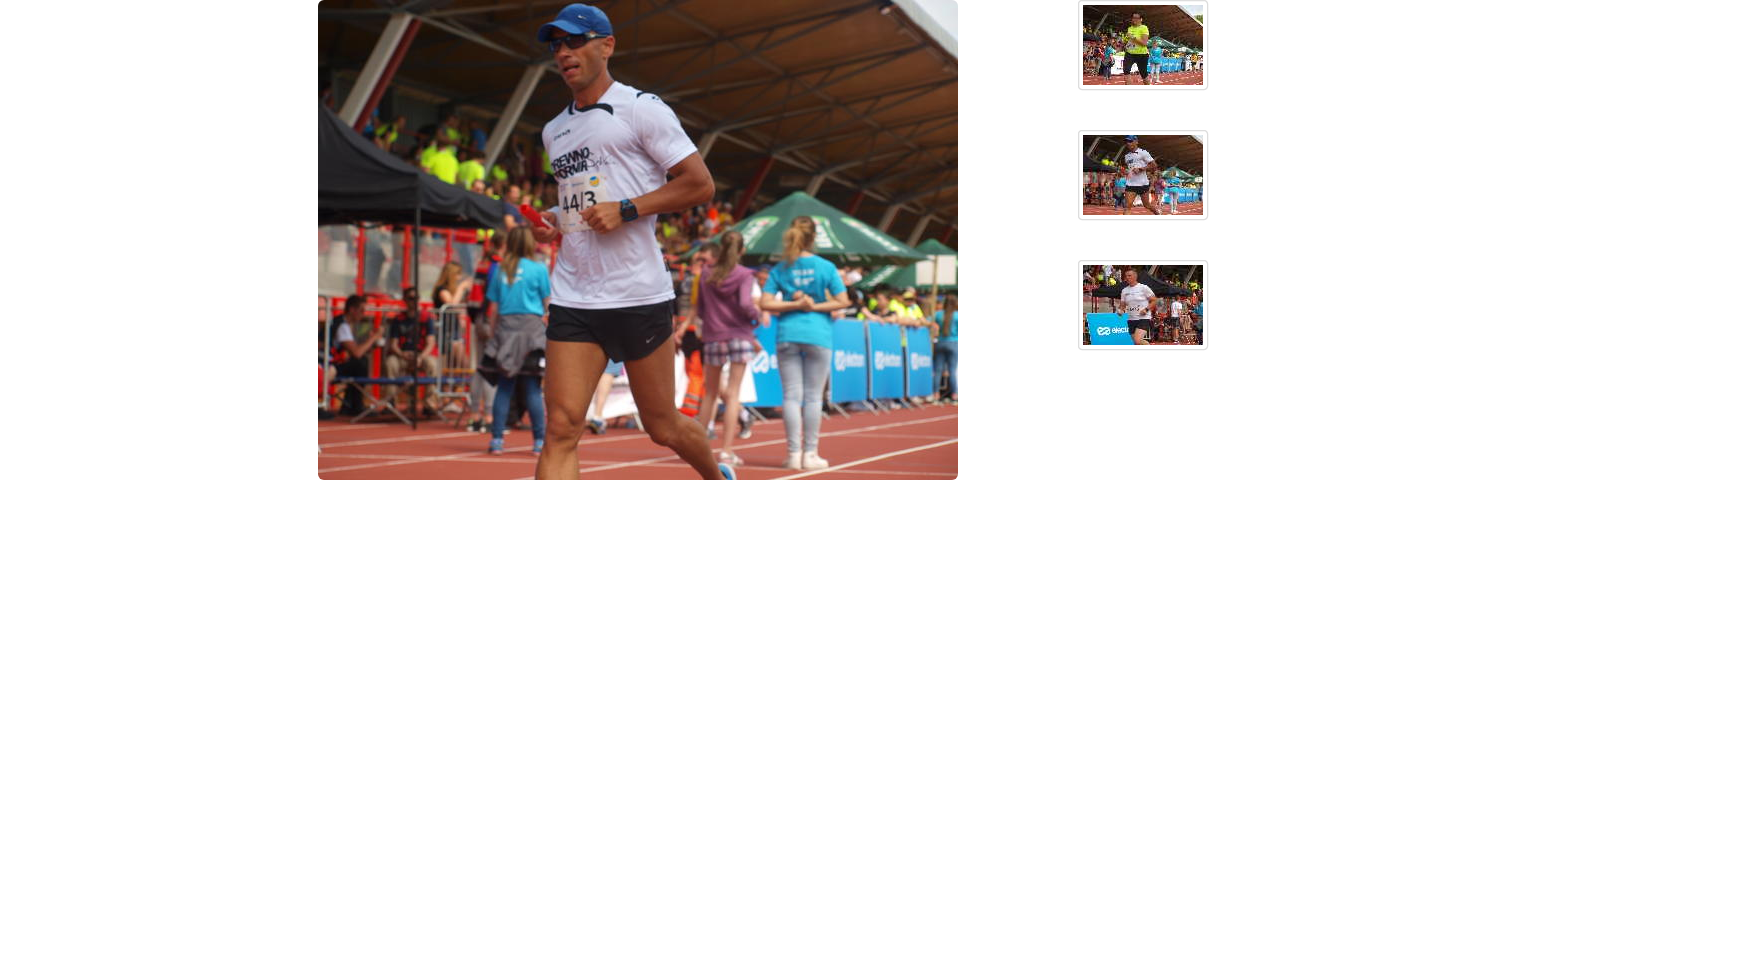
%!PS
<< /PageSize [1745 971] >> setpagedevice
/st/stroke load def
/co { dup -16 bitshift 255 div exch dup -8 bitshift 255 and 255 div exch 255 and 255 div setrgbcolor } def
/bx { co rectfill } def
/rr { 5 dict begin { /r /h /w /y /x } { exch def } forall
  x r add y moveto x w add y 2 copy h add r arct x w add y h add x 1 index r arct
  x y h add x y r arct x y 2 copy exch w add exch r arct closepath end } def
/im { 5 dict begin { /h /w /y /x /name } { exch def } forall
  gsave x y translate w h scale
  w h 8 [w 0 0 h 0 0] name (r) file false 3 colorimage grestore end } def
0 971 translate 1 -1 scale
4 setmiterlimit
0 0 1745 971 16#FFFFFF bx
(media/1.raw) 318 0 640 480 im
16#DDDDDD co
1078.5 .5 129 89 3.5 rr st
(media/2.raw) 1083 5 120 80 im
1078.5 130.5 129 89 3.5 rr st
(media/3.raw) 1083 135 120 80 im
1078.5 260.5 129 89 3.5 rr st
(media/4.raw) 1083 265 120 80 im
showpage
